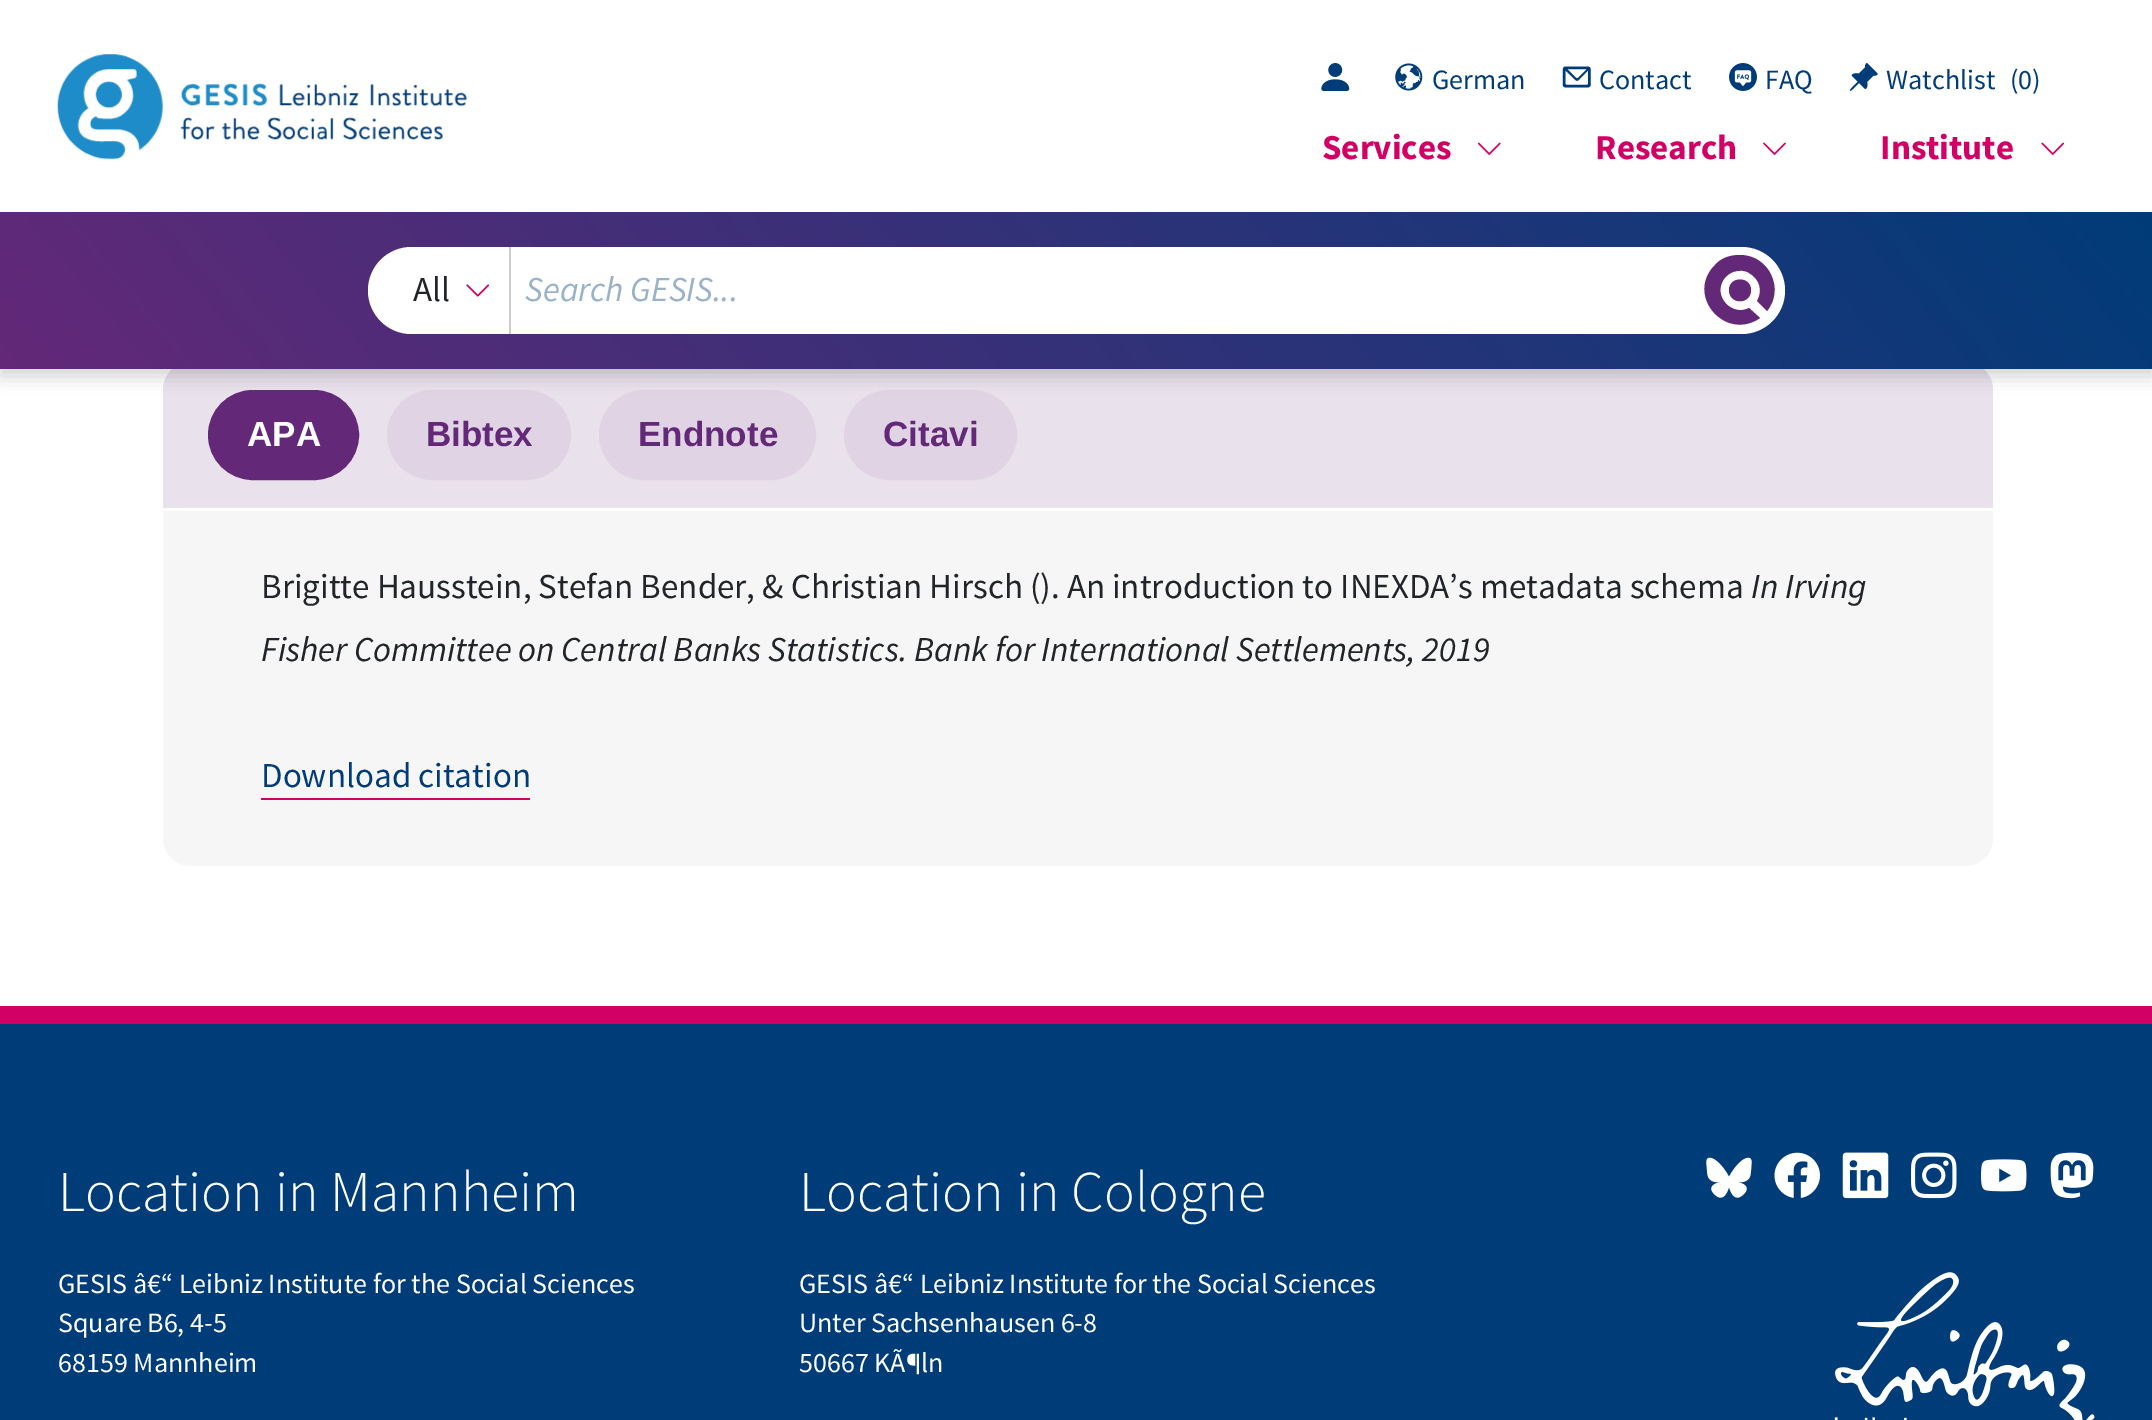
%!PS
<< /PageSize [2152 1420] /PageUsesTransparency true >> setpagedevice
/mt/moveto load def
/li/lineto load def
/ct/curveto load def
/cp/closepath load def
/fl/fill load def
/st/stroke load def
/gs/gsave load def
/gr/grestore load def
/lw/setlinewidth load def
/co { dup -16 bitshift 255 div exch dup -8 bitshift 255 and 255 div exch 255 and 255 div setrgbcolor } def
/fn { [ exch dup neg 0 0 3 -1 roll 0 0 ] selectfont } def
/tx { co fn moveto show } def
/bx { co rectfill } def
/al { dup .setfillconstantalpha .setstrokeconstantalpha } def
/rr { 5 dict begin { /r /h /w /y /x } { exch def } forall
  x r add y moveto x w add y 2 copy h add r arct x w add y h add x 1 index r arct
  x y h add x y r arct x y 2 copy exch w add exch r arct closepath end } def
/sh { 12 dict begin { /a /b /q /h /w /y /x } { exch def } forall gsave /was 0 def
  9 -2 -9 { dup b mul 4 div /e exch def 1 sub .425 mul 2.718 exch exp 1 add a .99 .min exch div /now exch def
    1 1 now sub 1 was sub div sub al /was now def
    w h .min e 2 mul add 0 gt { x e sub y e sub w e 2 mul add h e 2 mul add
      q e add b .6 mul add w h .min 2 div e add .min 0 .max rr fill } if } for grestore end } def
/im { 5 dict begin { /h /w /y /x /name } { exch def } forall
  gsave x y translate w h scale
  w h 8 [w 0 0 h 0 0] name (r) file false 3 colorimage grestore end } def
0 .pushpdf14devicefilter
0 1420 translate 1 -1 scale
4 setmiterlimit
0 0 2152 1420 16#FFFFFF bx
16#E9E1EC co
191 362 mt 1965 362 li 1980.5 362 1993 374.5 1993 390 ct 1993 508 li 163 508 li 163 390 li 163 374.5 175.5 362 191 362 ct cp fl
16#642878 co
210 392 147 86 43 rr gs fl gr
4 lw
st
16#E0D4E4 co
389 392 180 86 43 rr gs fl gr
st
601 392 213 86 43 rr gs fl gr
st
846 392 169 86 43 rr gs fl gr
st
16#000000 co
0 7 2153 369 0 9 .18 sh
0 0 2152 212 16#FFFFFF bx
(media/1.raw) 57 54 410 106 im
(media/2.raw) 1321 63 29 28 im
(media/3.raw) 1395 63 28 28 im
(media/4.raw) 1562 66 29 22 im
(media/5.raw) 1729 63 28 28 im
(media/6.raw) 1849 63 29 28 im
(media/7.raw) 1477 142 24 13 im
(media/8.raw) 1763 142 23 13 im
(media/9.raw) 2041 142 24 13 im
gs 0 212 mt 2152 212 li 2152 369 li 0 369 li cp clip newpath
<< /ShadingType 2 /ColorSpace /DeviceRGB /Coords [406 853 1747 -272] /Extend [true true] /Function << /FunctionType 2 /Domain [0 1] /C0 [.392 .157 .471] /C1 [0 .235 .471] /N 1 >> >> shfill gr
368 247 1417 87 43.5 rr fl
(media/10.raw) 466 284 24 13 im
509 247 2 87 16#CCCCCC bx
16#642878 co
1751 290 mt 1751 305 1729 305 1729 290 ct 1729 276 1751 276 1751 290 ct cp 1740 255 mt 1730 255 1721 258 1715 265 ct 1685 295 1725 342 1760 318 ct 1749 308 li 1732 317 1712 296 1724 279 ct 1726 276 1730 273 1733 272 ct 1739 270 1745 270 1749 273 ct 1760 279 1763 291 1757 301 ct 1767 311 li 1785 289 1769 255 1740 255 ct cp 1767 311 mt 1757 301 li cp fl
16#F6F6F6 co
163 511 mt 1993 511 li 1993 838 li 1993 853.5 1980.5 866 1965 866 ct 191 866 li 175.5 866 163 853.5 163 838 ct cp fl
261 798 269 2 16#D20064 bx
0 1024 2152 396 16#003C78 bx
0 1006 2152 18 16#D20064 bx
(media/11.raw) 1706 1157 46 41 im
(media/12.raw) 1774 1152 46 46 im
(media/13.raw) 1842 1152 47 47 im
(media/14.raw) 1911 1152 46 47 im
(media/15.raw) 1981 1159 46 33 im
(media/16.raw) 2050 1152 44 47 im
(media/17.raw) 1834 1272 261 148 im
(German) 1432 89 /SourceSansPro-Regular 28 16#003C78 tx
(Contact) 1599 89 /SourceSansPro-Regular 28 16#003C78 tx
(FAQ) 1765 89 /SourceSansPro-Regular 28 16#003C78 tx
(Watchlist) 1886 89 /SourceSansPro-Regular 28 16#003C78 tx
(\(0\)) 2010 89 /SourceSansPro-Regular 28 16#003C78 tx
(Services) 1322 159 /SourceSansPro-Bold 35 16#D20064 tx
(Research) 1595 159 /SourceSansPro-Bold 35 16#D20064 tx
(Institute) 1880 159 /SourceSansPro-Bold 35 16#D20064 tx
(All) 413 301 /SourceSansPro-Regular 35 16#212529 tx
(Search GESIS...) 525 301 /SourceSansPro-Italic 35 16#99B1C9 tx
(APA) 247 446 /LiberationSans-Bold 35 16#FFFFFF tx
(Bibtex) 426 446 /LiberationSans-Bold 35 16#642878 tx
(Endnote) 638 446 /LiberationSans-Bold 35 16#642878 tx
(Citavi) 883 446 /LiberationSans-Bold 35 16#642878 tx
(Brigitte Hausstein, Stefan Bender, & Christian Hirsch \(\). An introduction to INEXDA’s metadata schema) 261 598 /SourceSansPro-Regular 35 16#212529 tx
(In Irving) 1751 598 /SourceSansPro-Italic 35 16#212529 tx
(Fisher Committee on Central Banks Statistics. Bank for International Settlements, 2019) 261 661 /SourceSansPro-Italic 35 16#212529 tx
(Download citation) 261 787 /SourceSansPro-Regular 35 16#003C78 tx
(Location in Mannheim) 58 1211 /SourceSansPro-Light 57.75 16#FFFFFF tx
(GESIS â€“ Leibniz Institute for the Social Sciences) 58 1293 /SourceSansPro-Regular 28 16#FFFFFF tx
(Square B6, 4-5) 58 1332 /SourceSansPro-Regular 28 16#FFFFFF tx
(68159 Mannheim) 58 1372 /SourceSansPro-Regular 28 16#FFFFFF tx
(Location in Cologne) 799 1211 /SourceSansPro-Light 57.75 16#FFFFFF tx
(GESIS â€“ Leibniz Institute for the Social Sciences) 799 1293 /SourceSansPro-Regular 28 16#FFFFFF tx
(Unter Sachsenhausen 6-8) 799 1332 /SourceSansPro-Regular 28 16#FFFFFF tx
(50667 KÃ¶ln) 799 1372 /SourceSansPro-Regular 28 16#FFFFFF tx
.poppdf14devicefilter showpage
